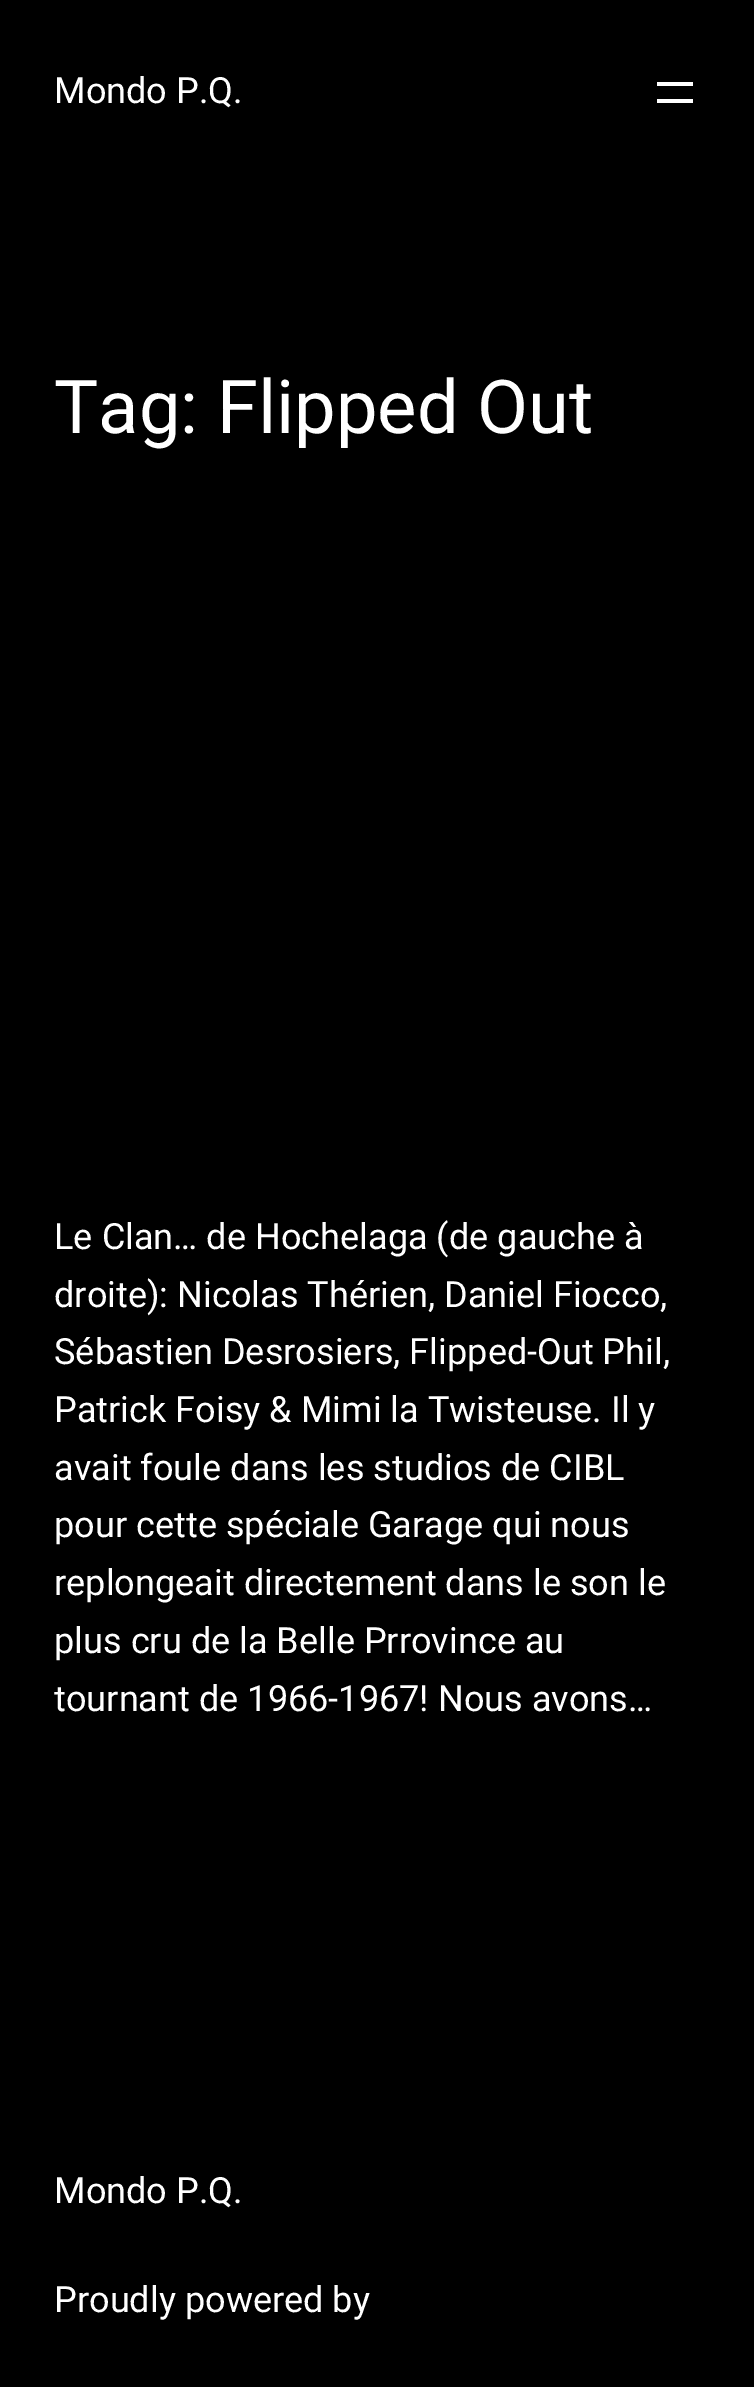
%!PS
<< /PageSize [754 2387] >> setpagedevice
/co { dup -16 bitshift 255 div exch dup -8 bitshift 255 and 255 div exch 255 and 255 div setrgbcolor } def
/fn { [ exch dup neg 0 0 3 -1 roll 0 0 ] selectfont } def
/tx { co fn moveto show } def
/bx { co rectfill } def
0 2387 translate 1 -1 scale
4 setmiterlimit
0 0 754 2387 16#000000 bx
657 82 36 4 16#FFFFFF bx
657 99 36 4 16#FFFFFF bx
(Mondo P.Q.) 54 103 /Roboto-Regular 36.1 16#FFFFFF tx
(Tag: Flipped Out) 54 433 /Roboto-Regular 74.25 16#FFFFFF tx
(Le Clan… de Hochelaga \(de gauche à) 54 1249 /Roboto-Regular 36.1 16#FFFFFF tx
(droite\): Nicolas Thérien, Daniel Fiocco,) 54 1307 /Roboto-Regular 36.1 16#FFFFFF tx
(Sébastien Desrosiers, Flipped-Out Phil,) 54 1364 /Roboto-Regular 36.1 16#FFFFFF tx
(Patrick Foisy & Mimi la Twisteuse. Il y) 54 1422 /Roboto-Regular 36.1 16#FFFFFF tx
(avait foule dans les studios de CIBL) 54 1480 /Roboto-Regular 36.1 16#FFFFFF tx
(pour cette spéciale Garage qui nous) 54 1537 /Roboto-Regular 36.1 16#FFFFFF tx
(replongeait directement dans le son le) 54 1595 /Roboto-Regular 36.1 16#FFFFFF tx
(plus cru de la Belle Prrovince au) 54 1653 /Roboto-Regular 36.1 16#FFFFFF tx
(tournant de 1966-1967! Nous avons…) 54 1711 /Roboto-Regular 36.1 16#FFFFFF tx
(Mondo P.Q.) 54 2203 /Roboto-Regular 36.1 16#FFFFFF tx
(Proudly powered by) 54 2312 /Roboto-Regular 36.1 16#FFFFFF tx
showpage
